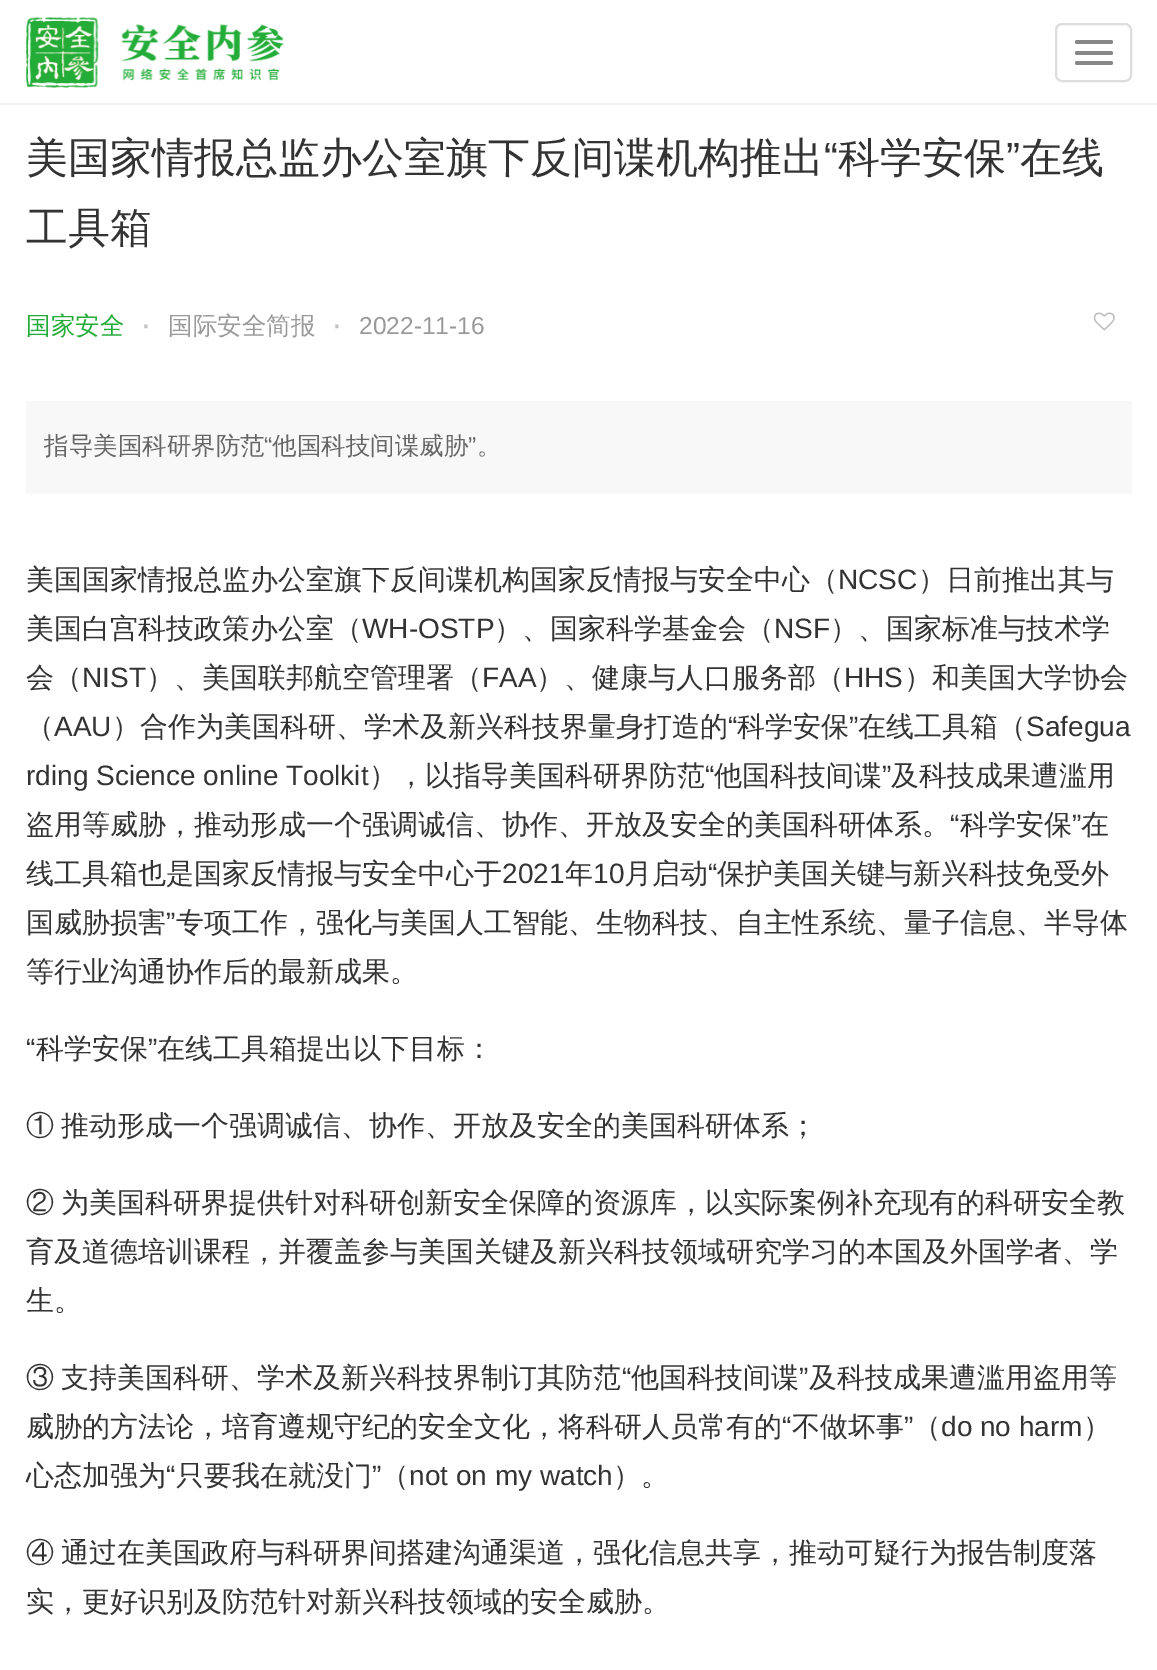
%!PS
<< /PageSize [1157 1670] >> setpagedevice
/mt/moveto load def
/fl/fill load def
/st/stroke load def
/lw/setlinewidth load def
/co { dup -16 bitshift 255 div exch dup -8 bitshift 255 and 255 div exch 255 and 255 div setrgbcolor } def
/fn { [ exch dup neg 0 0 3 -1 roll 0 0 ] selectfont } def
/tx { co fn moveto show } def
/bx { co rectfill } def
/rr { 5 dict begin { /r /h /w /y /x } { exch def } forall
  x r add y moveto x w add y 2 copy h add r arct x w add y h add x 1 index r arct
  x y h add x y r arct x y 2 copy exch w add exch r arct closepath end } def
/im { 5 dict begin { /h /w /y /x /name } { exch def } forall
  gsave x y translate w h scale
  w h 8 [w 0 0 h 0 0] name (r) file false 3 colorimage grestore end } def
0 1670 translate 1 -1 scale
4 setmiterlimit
0 0 1157 1670 16#FFFFFF bx
0 103 1157 2 16#F3F3F3 bx
(media/1.raw) 26 17 258 71 im
16#DDDDDD co
2 lw
1056 24 75 57 6 rr st
16#888888 co
1075 40 38 4 2 rr fl
1075 51 38 4 2 rr fl
1075 61 38 4 2 rr fl
(media/2.raw) 1093 312 22 19 im
26 401 1106 93 16#F8F8F8 bx
(美国家情报总监办公室旗下反间谍机构推出) 26 172 /WenQuanYiZenHei-Medium 42 16#333333 tx
(“) 824 172 /LiberationSans-Regular 42 16#333333 tx
(科学安保) 838 172 /WenQuanYiZenHei-Medium 42 16#333333 tx
(”) 1006 172 /LiberationSans-Regular 42 16#333333 tx
(在线) 1020 172 /WenQuanYiZenHei-Medium 42 16#333333 tx
(工具箱) 26 242 /WenQuanYiZenHei-Medium 42 16#333333 tx
(国家安全) 26 334 /WenQuanYiZenHei-Medium 24.5 16#23AC38 tx
(·) 140 336 /LiberationSans-Regular 35 16#C2C2C2 tx
(国际安全简报) 168 334 /WenQuanYiZenHei-Medium 24.5 16#999999 tx
(·) 331 336 /LiberationSans-Regular 35 16#C2C2C2 tx
(2022-11-16) 359 334 /LiberationSans-Regular 24.5 16#999999 tx
(指导美国科研界防范) 44 454 /WenQuanYiZenHei-Medium 24.5 16#666666 tx
(“) 264 454 /LiberationSans-Regular 24.5 16#666666 tx
(他国科技间谍威胁) 272 454 /WenQuanYiZenHei-Medium 24.5 16#666666 tx
(”) 468 454 /LiberationSans-Regular 24.5 16#666666 tx
(。) 477 454 /WenQuanYiZenHei-Medium 24.5 16#666666 tx
(美国国家情报总监办公室旗下反间谍机构国家反情报与安全中心（) 26 589 /WenQuanYiZenHei-Medium 28 16#333333 tx
(NCSC) 838 589 /LiberationSans-Regular 28 16#333333 tx
(）日前推出其与) 918 589 /WenQuanYiZenHei-Medium 28 16#333333 tx
(美国白宫科技政策办公室（) 26 638 /WenQuanYiZenHei-Medium 28 16#333333 tx
(WH-OSTP) 362 638 /LiberationSans-Regular 28 16#333333 tx
(）、国家科学基金会（) 494 638 /WenQuanYiZenHei-Medium 28 16#333333 tx
(NSF) 774 638 /LiberationSans-Regular 28 16#333333 tx
(）、国家标准与技术学) 830 638 /WenQuanYiZenHei-Medium 28 16#333333 tx
(会（) 26 687 /WenQuanYiZenHei-Medium 28 16#333333 tx
(NIST) 82 687 /LiberationSans-Regular 28 16#333333 tx
(）、美国联邦航空管理署（) 146 687 /WenQuanYiZenHei-Medium 28 16#333333 tx
(FAA) 482 687 /LiberationSans-Regular 28 16#333333 tx
(）、健康与人口服务部（) 536 687 /WenQuanYiZenHei-Medium 28 16#333333 tx
(HHS) 844 687 /LiberationSans-Regular 28 16#333333 tx
(）和美国大学协会) 904 687 /WenQuanYiZenHei-Medium 28 16#333333 tx
(（) 26 736 /WenQuanYiZenHei-Medium 28 16#333333 tx
(AAU) 54 736 /LiberationSans-Regular 28 16#333333 tx
(）合作为美国科研、学术及新兴科技界量身打造的) 112 736 /WenQuanYiZenHei-Medium 28 16#333333 tx
(“) 728 736 /LiberationSans-Regular 28 16#333333 tx
(科学安保) 737 736 /WenQuanYiZenHei-Medium 28 16#333333 tx
(”) 849 736 /LiberationSans-Regular 28 16#333333 tx
(在线工具箱（) 858 736 /WenQuanYiZenHei-Medium 28 16#333333 tx
(Safegua) 1026 736 /LiberationSans-Regular 28 16#333333 tx
(rding Science online Toolkit) 26 785 /LiberationSans-Regular 28 16#333333 tx
(），以指导美国科研界防范) 369 785 /WenQuanYiZenHei-Medium 28 16#333333 tx
(“) 705 785 /LiberationSans-Regular 28 16#333333 tx
(他国科技间谍) 714 785 /WenQuanYiZenHei-Medium 28 16#333333 tx
(”) 882 785 /LiberationSans-Regular 28 16#333333 tx
(及科技成果遭滥用) 891 785 /WenQuanYiZenHei-Medium 28 16#333333 tx
(盗用等威胁，推动形成一个强调诚信、协作、开放及安全的美国科研体系。) 26 834 /WenQuanYiZenHei-Medium 28 16#333333 tx
(“) 950 834 /LiberationSans-Regular 28 16#333333 tx
(科学安保) 960 834 /WenQuanYiZenHei-Medium 28 16#333333 tx
(”) 1072 834 /LiberationSans-Regular 28 16#333333 tx
(在) 1081 834 /WenQuanYiZenHei-Medium 28 16#333333 tx
(线工具箱也是国家反情报与安全中心于) 26 883 /WenQuanYiZenHei-Medium 28 16#333333 tx
(2021) 502 883 /LiberationSans-Regular 28 16#333333 tx
(年) 565 883 /WenQuanYiZenHei-Medium 28 16#333333 tx
(10) 593 883 /LiberationSans-Regular 28 16#333333 tx
(月启动) 624 883 /WenQuanYiZenHei-Medium 28 16#333333 tx
(“) 708 883 /LiberationSans-Regular 28 16#333333 tx
(保护美国关键与新兴科技免受外) 717 883 /WenQuanYiZenHei-Medium 28 16#333333 tx
(国威胁损害) 26 932 /WenQuanYiZenHei-Medium 28 16#333333 tx
(”) 166 932 /LiberationSans-Regular 28 16#333333 tx
(专项工作，强化与美国人工智能、生物科技、自主性系统、量子信息、半导体) 176 932 /WenQuanYiZenHei-Medium 28 16#333333 tx
(等行业沟通协作后的最新成果。) 26 981 /WenQuanYiZenHei-Medium 28 16#333333 tx
(“) 26 1058 /LiberationSans-Regular 28 16#333333 tx
(科学安保) 36 1058 /WenQuanYiZenHei-Medium 28 16#333333 tx
(”) 148 1058 /LiberationSans-Regular 28 16#333333 tx
(在线工具箱提出以下目标：) 157 1058 /WenQuanYiZenHei-Medium 28 16#333333 tx
26 1135 mt -1 0 32 (① 推动形成一个强调诚信、协作、开放及安全的美国科研体系；) widthshow
26 1212 mt -1 0 32 (② 为美国科研界提供针对科研创新安全保障的资源库，以实际案例补充现有的科研安全教) widthshow
(育及道德培训课程，并覆盖参与美国关键及新兴科技领域研究学习的本国及外国学者、学) 26 1261 /WenQuanYiZenHei-Medium 28 16#333333 tx
(生。) 26 1310 /WenQuanYiZenHei-Medium 28 16#333333 tx
26 1387 mt -1 0 32 (③ 支持美国科研、学术及新兴科技界制订其防范) widthshow
(“) 622 1387 /LiberationSans-Regular 28 16#333333 tx
(他国科技间谍) 631 1387 /WenQuanYiZenHei-Medium 28 16#333333 tx
(”) 799 1387 /LiberationSans-Regular 28 16#333333 tx
(及科技成果遭滥用盗用等) 809 1387 /WenQuanYiZenHei-Medium 28 16#333333 tx
(威胁的方法论，培育遵规守纪的安全文化，将科研人员常有的) 26 1436 /WenQuanYiZenHei-Medium 28 16#333333 tx
(“) 782 1436 /LiberationSans-Regular 28 16#333333 tx
(不做坏事) 792 1436 /WenQuanYiZenHei-Medium 28 16#333333 tx
(”) 904 1436 /LiberationSans-Regular 28 16#333333 tx
(（) 913 1436 /WenQuanYiZenHei-Medium 28 16#333333 tx
(do no harm) 941 1436 /LiberationSans-Regular 28 16#333333 tx
(）) 1083 1436 /WenQuanYiZenHei-Medium 28 16#333333 tx
(心态加强为) 26 1485 /WenQuanYiZenHei-Medium 28 16#333333 tx
(“) 166 1485 /LiberationSans-Regular 28 16#333333 tx
(只要我在就没门) 176 1485 /WenQuanYiZenHei-Medium 28 16#333333 tx
(”) 372 1485 /LiberationSans-Regular 28 16#333333 tx
(（) 381 1485 /WenQuanYiZenHei-Medium 28 16#333333 tx
(not on my watch) 409 1485 /LiberationSans-Regular 28 16#333333 tx
(）。) 613 1485 /WenQuanYiZenHei-Medium 28 16#333333 tx
26 1562 mt -1 0 32 (④ 通过在美国政府与科研界间搭建沟通渠道，强化信息共享，推动可疑行为报告制度落) widthshow
(实，更好识别及防范针对新兴科技领域的安全威胁。) 26 1611 /WenQuanYiZenHei-Medium 28 16#333333 tx
showpage
